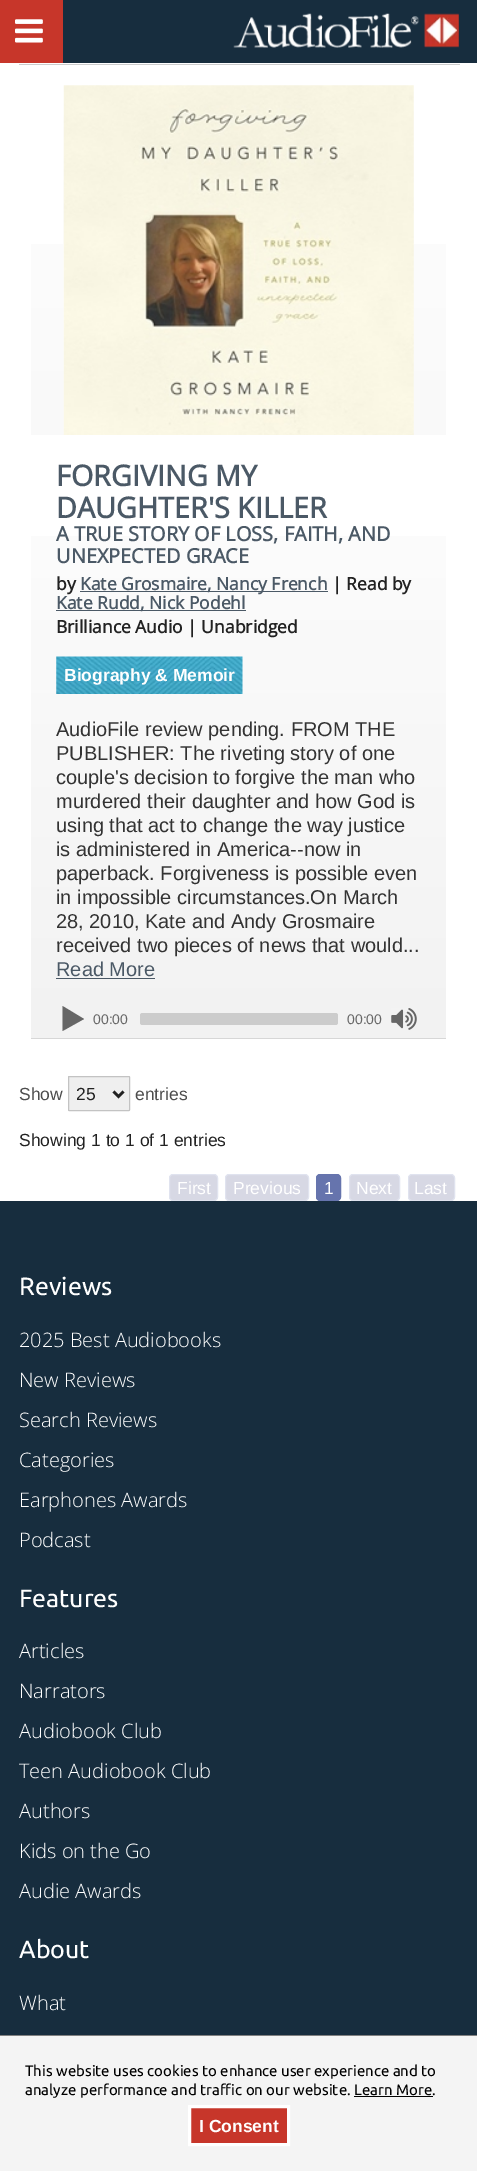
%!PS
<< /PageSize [477 2171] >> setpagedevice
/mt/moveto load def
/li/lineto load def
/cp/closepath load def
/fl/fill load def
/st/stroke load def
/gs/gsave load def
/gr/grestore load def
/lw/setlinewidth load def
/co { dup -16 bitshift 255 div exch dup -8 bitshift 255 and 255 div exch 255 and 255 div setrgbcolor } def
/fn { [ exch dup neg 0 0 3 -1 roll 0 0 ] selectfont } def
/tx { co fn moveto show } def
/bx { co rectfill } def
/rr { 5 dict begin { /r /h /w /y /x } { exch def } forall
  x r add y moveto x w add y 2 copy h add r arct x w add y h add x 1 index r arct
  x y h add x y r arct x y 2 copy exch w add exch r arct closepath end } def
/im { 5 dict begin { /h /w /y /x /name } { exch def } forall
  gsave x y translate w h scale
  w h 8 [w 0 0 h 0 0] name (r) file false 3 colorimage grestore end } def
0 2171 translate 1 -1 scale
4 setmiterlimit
0 0 477 2171 16#FFFFFF bx
63 0 414 63 16#172D3E bx
0 0 63 63 16#C7362A bx
(media/1.raw) 15 19 28 24 im
(media/2.raw) 233 13 226 35 im
19 64 441 1 16#CCCCCC bx
gs 31 244 mt 446 244 li 446 435 li 31 435 li cp clip newpath
<< /ShadingType 2 /ColorSpace /DeviceRGB /Coords [239 85 239 1038] /Extend [true true] /Function << /FunctionType 3 /Domain [0 1] /Functions [<< /FunctionType 2 /Domain [0 1] /C0 [1 1 1] /C1 [.976 .976 .976] /N 1 >> << /FunctionType 2 /Domain [0 1] /C0 [.976 .976 .976] /C1 [.949 .949 .949] /N 1 >>] /Bounds [.4] /Encode [0 1 0 1] >> >> shfill gr
31 1038 415 1 16#D7D7D7 bx
(media/3.raw) 63 85 351 350 im
gs 31 536 mt 446 536 li 446 1038 li 31 1038 li cp clip newpath
<< /ShadingType 2 /ColorSpace /DeviceRGB /Coords [239 435 239 1038] /Extend [true true] /Function << /FunctionType 3 /Domain [0 1] /Functions [<< /FunctionType 2 /Domain [0 1] /C0 [1 1 1] /C1 [.976 .976 .976] /N 1 >> << /FunctionType 2 /Domain [0 1] /C0 [.976 .976 .976] /C1 [.949 .949 .949] /N 1 >>] /Bounds [.4] /Encode [0 1 0 1] >> >> shfill gr
80 591 248 1 16#4B5966 bx
56 610 190 1 16#4B5966 bx
(media/4.raw) 56 656 187 38 im
56 978 99 1 16#4B5966 bx
16#666666 co
62.5 1031 mt 62.5 1006 li 84 1019 li cp fl
16#CCCCCC co
140 1013 198 12 2.5 rr fl
(media/5.raw) 391 1008 26 22 im
16#EFEFEF co
68.5 1076.5 61 34 .5 rr gs fl gr
16#C3C3C3 co
st
16#222222 co
2.5 lw
113.5 1091.5 mt 118.5 1096.5 li 123.5 1091.5 li st
16#D7D8E4 co
169.5 1174.5 48 26 3.5 rr gs fl gr
16#E0E3EF co
1 lw
st
16#D7D8E4 co
225.5 1174.5 83 26 3.5 rr gs fl gr
16#E0E3EF co
st
16#6674AD co
316.5 1174.5 24 26 3.5 rr gs fl gr
st
16#D7D8E4 co
349.5 1174.5 50 26 3.5 rr gs fl gr
16#E0E3EF co
st
16#D7D8E4 co
408.5 1174.5 46 26 3.5 rr gs fl gr
16#E0E3EF co
st
0 1201 477 834 16#172D3E bx
0 2036 477 135 16#F4F4F4 bx
0 2035 477 1 16#808080 bx
354 2096 79 1 16#000000 bx
16#C7362A co
189.5 2106.5 mt 288.5 2106.5 li 288.5 2144.5 li 189.5 2144.5 li cp gs fl gr
16#FFFFFF co
3 lw
st
(FORGIVING MY) 56 486 /OpenSans-Bold 28.75 16#4B5966 tx
(DAUGHTER'S KILLER) 56 518 /OpenSans-Bold 28.75 16#4B5966 tx
(A TRUE STORY OF LOSS, FAITH, AND) 56 541 /OpenSans-Bold 20 16#4B5966 tx
(UNEXPECTED GRACE) 56 563 /OpenSans-Bold 20 16#4B5966 tx
(by) 56 590 /OpenSans-Bold 17.5 16#222222 tx
(Kate Grosmaire, Nancy French) 80 590 /OpenSans-Bold 17.5 16#4B5966 tx
(| Read by) 332 590 /OpenSans-Bold 17.5 16#222222 tx
(Kate Rudd, Nick Podehl) 56 609 /OpenSans-Bold 17.5 16#4B5966 tx
(Brilliance Audio | Unabridged) 56 633 /OpenSans-Bold 17.5 16#222222 tx
(Biography & Memoir) 64 681 /LiberationSans-Bold 17.5 16#FFFFFF tx
(AudioFile review pending. FROM THE) 56 736 /LiberationSans-Regular 20 16#333333 tx
(PUBLISHER: The riveting story of one) 56 760 /LiberationSans-Regular 20 16#333333 tx
(couple's decision to forgive the man who) 56 784 /LiberationSans-Regular 20 16#333333 tx
(murdered their daughter and how God is) 56 808 /LiberationSans-Regular 20 16#333333 tx
(using that act to change the way justice) 56 832 /LiberationSans-Regular 20 16#333333 tx
(is administered in America--now in) 56 856 /LiberationSans-Regular 20 16#333333 tx
(paperback. Forgiveness is possible even) 56 880 /LiberationSans-Regular 20 16#333333 tx
(in impossible circumstances.On March) 56 904 /LiberationSans-Regular 20 16#333333 tx
(28, 2010, Kate and Andy Grosmaire) 56 928 /LiberationSans-Regular 20 16#333333 tx
(received two pieces of news that would...) 56 952 /LiberationSans-Regular 20 16#333333 tx
(Read More) 56 976 /LiberationSans-Regular 20 16#4B5966 tx
(00:00) 93 1024 /LiberationSans-Regular 14 16#666666 tx
(00:00) 347 1024 /LiberationSans-Regular 14 16#666666 tx
(Show) 19 1100 /LiberationSans-Regular 17.5 16#4D4D4D tx
(25) 76 1100 /LiberationSans-Regular 17.5 16#222222 tx
(entries) 135 1100 /LiberationSans-Regular 17.5 16#4D4D4D tx
(Showing 1 to 1 of 1 entries) 19 1146 /LiberationSans-Regular 17.5 16#222222 tx
(First) 177 1194 /LiberationSans-Regular 17.5 16#FFFFFF tx
(Previous) 233 1194 /LiberationSans-Regular 17.5 16#FFFFFF tx
(1) 324 1194 /LiberationSans-Regular 17.5 16#FFFFFF tx
(Next) 356 1194 /LiberationSans-Regular 17.5 16#FFFFFF tx
(Last) 414 1194 /LiberationSans-Regular 17.5 16#FFFFFF tx
(Reviews) 19 1295 /Ubuntu-Regular 25 16#FFFFFF tx
(2025 Best Audiobooks) 19 1347 /OpenSans-Light 20 16#FFFFFF tx
(New Reviews) 19 1387 /OpenSans-Light 20 16#FFFFFF tx
(Search Reviews) 19 1427 /OpenSans-Light 20 16#FFFFFF tx
(Categories) 19 1467 /OpenSans-Light 20 16#FFFFFF tx
(Earphones Awards) 19 1507 /OpenSans-Light 20 16#FFFFFF tx
(Podcast) 19 1547 /OpenSans-Light 20 16#FFFFFF tx
(Features) 19 1607 /Ubuntu-Regular 25 16#FFFFFF tx
(Articles) 19 1658 /OpenSans-Light 20 16#FFFFFF tx
(Narrators) 19 1698 /OpenSans-Light 20 16#FFFFFF tx
(Audiobook Club) 19 1738 /OpenSans-Light 20 16#FFFFFF tx
(Teen Audiobook Club) 19 1778 /OpenSans-Light 20 16#FFFFFF tx
(Authors) 19 1818 /OpenSans-Light 20 16#FFFFFF tx
(Kids on the Go) 19 1858 /OpenSans-Light 20 16#FFFFFF tx
(Audie Awards) 19 1898 /OpenSans-Light 20 16#FFFFFF tx
(About) 19 1958 /Ubuntu-Regular 25 16#FFFFFF tx
(What) 19 2010 /OpenSans-Light 20 16#FFFFFF tx
(This website uses cookies to enhance user experience and to) 25 2076 /Ubuntu-Regular 15 16#000000 tx
(analyze performance and traffic on our website. Learn More.) 25 2095 /Ubuntu-Regular 15 16#000000 tx
(I Consent) 199 2132 /LiberationSans-Bold 17.5 16#FFFFFF tx
showpage
